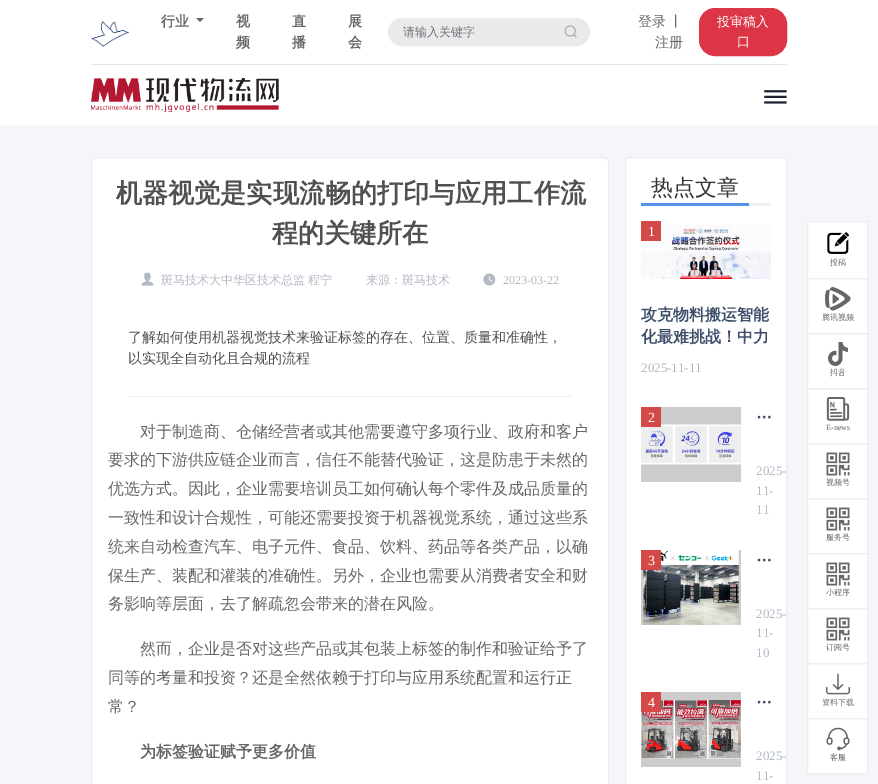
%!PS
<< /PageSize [878 784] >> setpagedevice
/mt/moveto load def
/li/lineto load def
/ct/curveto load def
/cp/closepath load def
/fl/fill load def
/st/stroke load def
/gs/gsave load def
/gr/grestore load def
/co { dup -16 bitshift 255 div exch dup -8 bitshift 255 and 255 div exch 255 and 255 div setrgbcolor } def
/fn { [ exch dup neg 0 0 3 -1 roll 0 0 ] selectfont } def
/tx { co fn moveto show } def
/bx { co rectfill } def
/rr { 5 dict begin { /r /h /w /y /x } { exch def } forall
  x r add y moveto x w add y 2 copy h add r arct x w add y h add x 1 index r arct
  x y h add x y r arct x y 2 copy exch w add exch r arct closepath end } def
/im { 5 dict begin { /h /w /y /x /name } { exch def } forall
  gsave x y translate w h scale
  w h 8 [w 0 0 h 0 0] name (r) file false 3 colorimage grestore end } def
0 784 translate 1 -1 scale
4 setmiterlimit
0 0 878 784 16#F5F6FA bx
0 0 878 125 16#FFFFFF bx
(media/1.raw) 91 21 38 26 im
16#666666 co
196 18 mt 204 18 li 200 22 li cp fl
16#EBEAEA co
388.5 18.5 201 27 13.5 rr st
552 19 mt 576 19 li 583 19 589 25 589 32 ct 589 39 583 45 576 45 ct 552 45 li cp fl
402 19 mt 553 19 li 553 45 li 402 45 li 395 45 389 39 389 32 ct 389 25 395 19 402 19 ct cp fl
(media/2.raw) 564 25 13 13 im
16#DC3545 co
699.5 8.5 87 47 15.5 rr gs fl gr
st
91 64 696 1 16#E5E5E5 bx
(media/3.raw) 91 78 188 34 im
(media/4.raw) 764 90 23 14 im
16#FFFFFF co
91.5 157.5 517 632 4.5 rr gs fl gr
16#E9ECF2 co
st
(media/5.raw) 141 272 13 14 im
(media/6.raw) 483 273 13 13 im
128 396 444 1 16#EDEDED bx
16#FFFFFF co
625.5 157.5 161 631 3.5 rr gs fl gr
16#E9ECF2 co
st
749 203 22 3 16#EFEFEF bx
641 203 108 3 16#5492EA bx
(media/7.raw) 641 225 130 54 im
641 221 20 20 16#D44848 bx
(media/8.raw) 641 407 100 75 im
641 407 20 20 16#D44848 bx
(media/9.raw) 641 550 100 75 im
641 550 20 20 16#D44848 bx
(media/10.raw) 641 692 100 75 im
641 692 20 20 16#D44848 bx
808 222 59 551 16#FFFFFF bx
16#EEEEEE co
807.5 221.5 60 57 rectstroke
(media/11.raw) 827 232 22 22 im
807.5 278.5 60 55 rectstroke
(media/12.raw) 825 287 26 24 im
807.5 333.5 60 55 rectstroke
(media/13.raw) 828 342 20 24 im
807.5 388.5 60 55 rectstroke
(media/14.raw) 826 397 24 24 im
807.5 443.5 60 55 rectstroke
(media/15.raw) 826 452 24 24 im
807.5 498.5 60 55 rectstroke
(media/15.raw) 826 507 24 24 im
807.5 553.5 60 55 rectstroke
(media/15.raw) 826 562 24 24 im
807.5 608.5 60 55 rectstroke
(media/15.raw) 826 617 24 24 im
807.5 663.5 60 55 rectstroke
(media/16.raw) 826 673 24 22 im
807.5 718.5 60 55 rectstroke
(media/17.raw) 826 727 24 24 im
(行业) 161 26 /WenQuanYiZenHei-Bold 14 16#666666 tx
(视) 236 26 /WenQuanYiZenHei-Bold 14 16#666666 tx
(频) 236 47 /WenQuanYiZenHei-Bold 14 16#666666 tx
(直) 292 26 /WenQuanYiZenHei-Bold 14 16#666666 tx
(播) 292 47 /WenQuanYiZenHei-Bold 14 16#666666 tx
(展) 348 26 /WenQuanYiZenHei-Bold 14 16#666666 tx
(会) 348 47 /WenQuanYiZenHei-Bold 14 16#666666 tx
(请输入关键字) 403 36 /WenQuanYiZenHei-Medium 12 16#6C757D tx
/WenQuanYiZenHei-Medium 14 fn
16#666666 co
638 26 mt -1 0 32 (登录 丨) widthshow
(注册) 655 47 /WenQuanYiZenHei-Medium 14 16#666666 tx
(投审稿入) 717 26 /WenQuanYiZenHei-Medium 13 16#FFFFFF tx
(口) 737 46 /WenQuanYiZenHei-Medium 13 16#FFFFFF tx
(机器视觉是实现流畅的打印与应用工作流) 116 202 /WenQuanYiZenHei-Bold 26.1 16#505050 tx
(程的关键所在) 272 242 /WenQuanYiZenHei-Bold 26.1 16#505050 tx
/WenQuanYiZenHei-Medium 12 fn
16#B2B9C5 co
161 284 mt -1 0 32 (斑马技术大中华区技术总监 程宁) widthshow
(来源：斑马技术) 366 284 /WenQuanYiZenHei-Medium 12 16#B2B9C5 tx
(2023-03-22) 503 284 /LiberationSerif-Regular 12 16#B2B9C5 tx
(了解如何使用机器视觉技术来验证标签的存在、位置、质量和准确性，) 128 342 /WenQuanYiZenHei-Medium 14 16#505050 tx
(以实现全自动化且合规的流程) 128 363 /WenQuanYiZenHei-Medium 14 16#505050 tx
(对于制造商、仓储经营者或其他需要遵守多项行业、政府和客户) 140 437 /WenQuanYiZenHei-Medium 16 16#666666 tx
(要求的下游供应链企业而言，信任不能替代验证，这是防患于未然的) 108 465 /WenQuanYiZenHei-Medium 16 16#666666 tx
(优选方式。因此，企业需要培训员工如何确认每个零件及成品质量的) 108 494 /WenQuanYiZenHei-Medium 16 16#666666 tx
(一致性和设计合规性，可能还需要投资于机器视觉系统，通过这些系) 108 523 /WenQuanYiZenHei-Medium 16 16#666666 tx
(统来自动检查汽车、电子元件、食品、饮料、药品等各类产品，以确) 108 552 /WenQuanYiZenHei-Medium 16 16#666666 tx
(保生产、装配和灌装的准确性。另外，企业也需要从消费者安全和财) 108 581 /WenQuanYiZenHei-Medium 16 16#666666 tx
(务影响等层面，去了解疏忽会带来的潜在风险。) 108 609 /WenQuanYiZenHei-Medium 16 16#666666 tx
(然而，企业是否对这些产品或其包装上标签的制作和验证给予了) 140 654 /WenQuanYiZenHei-Medium 16 16#666666 tx
(同等的考量和投资？还是全然依赖于打印与应用系统配置和运行正) 108 683 /WenQuanYiZenHei-Medium 16 16#666666 tx
(常？) 108 712 /WenQuanYiZenHei-Medium 16 16#666666 tx
(为标签验证赋予更多价值) 140 757 /WenQuanYiZenHei-Bold 16 16#666666 tx
(热点文章) 651 195 /WenQuanYiZenHei-Medium 22 16#333333 tx
(1) 648 236 /LiberationSerif-Regular 14 16#FFFFFF tx
(攻克物料搬运智能) 641 320 /WenQuanYiZenHei-Bold 16 16#3D4F6A tx
(化最难挑战！中力) 641 342 /WenQuanYiZenHei-Bold 16 16#3D4F6A tx
(2025-11-11) 641 372 /LiberationSerif-Regular 13 16#B2B9C5 tx
(2) 648 422 /LiberationSerif-Regular 14 16#FFFFFF tx
(…) 756 423 /WenQuanYiZenHei-Bold 16 16#3D4F6A tx
(2025-) 756 475 /LiberationSerif-Regular 13 16#B2B9C5 tx
(11-) 756 495 /LiberationSerif-Regular 13 16#B2B9C5 tx
(11) 756 514 /LiberationSerif-Regular 13 16#B2B9C5 tx
(3) 648 565 /LiberationSerif-Regular 14 16#FFFFFF tx
(…) 756 566 /WenQuanYiZenHei-Bold 16 16#3D4F6A tx
(2025-) 756 618 /LiberationSerif-Regular 13 16#B2B9C5 tx
(11-) 756 637 /LiberationSerif-Regular 13 16#B2B9C5 tx
(10) 756 657 /LiberationSerif-Regular 13 16#B2B9C5 tx
(4) 648 707 /LiberationSerif-Regular 14 16#FFFFFF tx
(…) 756 708 /WenQuanYiZenHei-Bold 16 16#3D4F6A tx
(2025-) 756 760 /LiberationSerif-Regular 13 16#B2B9C5 tx
(11-) 756 780 /LiberationSerif-Regular 13 16#B2B9C5 tx
(投稿) 830 265 /WenQuanYiZenHei-Medium 8 16#666666 tx
(腾讯视频) 822 320 /WenQuanYiZenHei-Medium 8 16#666666 tx
(抖音) 830 375 /WenQuanYiZenHei-Medium 8 16#666666 tx
(E-news) 826 430 /LiberationSerif-Regular 8 16#666666 tx
(视频号) 826 485 /WenQuanYiZenHei-Medium 8 16#666666 tx
(服务号) 826 540 /WenQuanYiZenHei-Medium 8 16#666666 tx
(小程序) 826 595 /WenQuanYiZenHei-Medium 8 16#666666 tx
(订阅号) 826 650 /WenQuanYiZenHei-Medium 8 16#666666 tx
(资料下载) 822 705 /WenQuanYiZenHei-Medium 8 16#666666 tx
(客服) 830 760 /WenQuanYiZenHei-Medium 8 16#666666 tx
showpage
